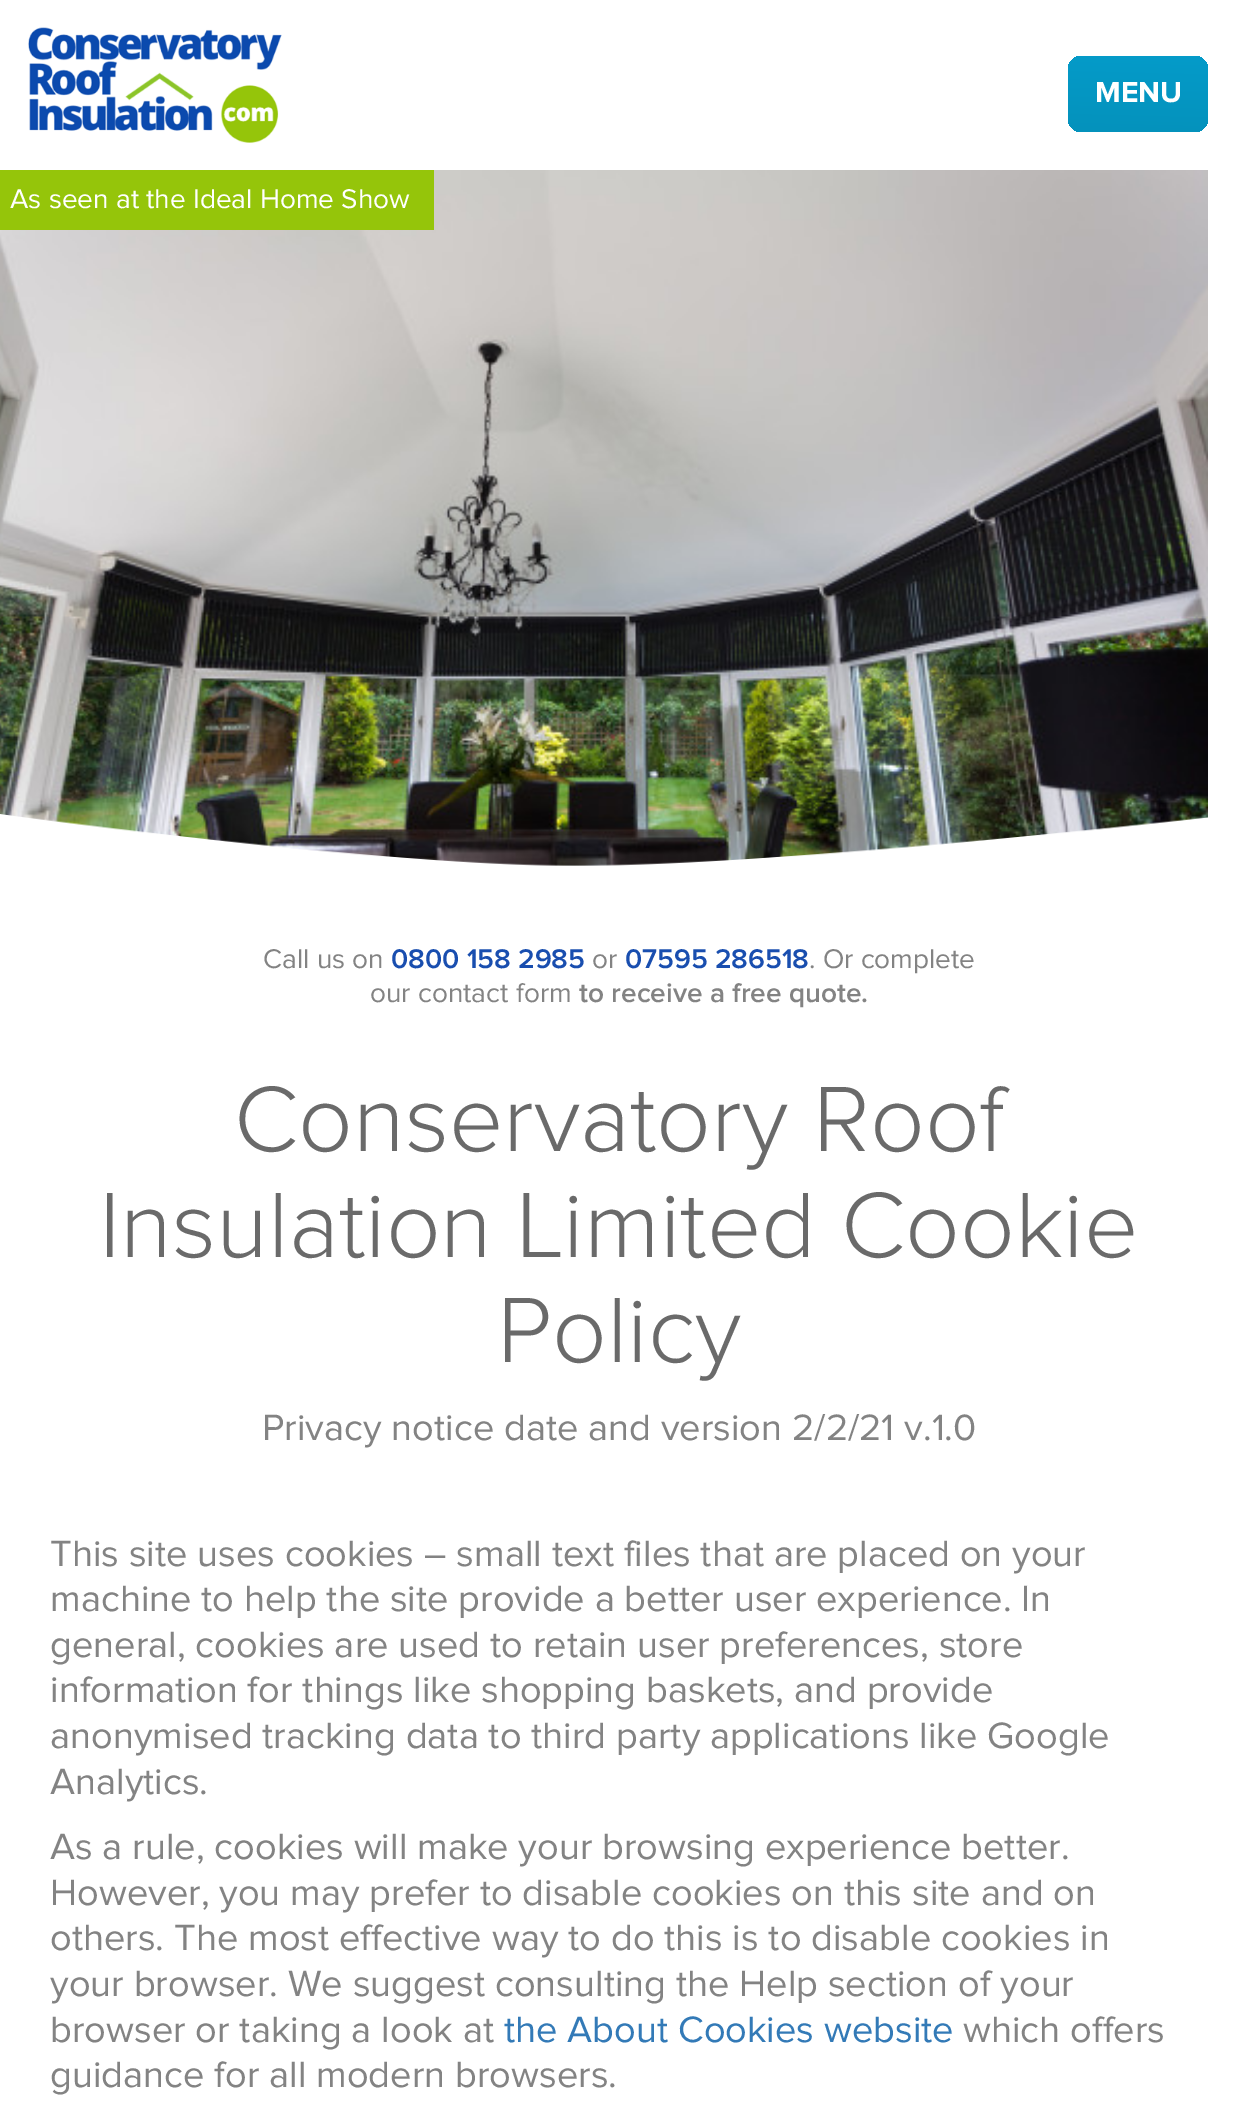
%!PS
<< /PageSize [1237 2115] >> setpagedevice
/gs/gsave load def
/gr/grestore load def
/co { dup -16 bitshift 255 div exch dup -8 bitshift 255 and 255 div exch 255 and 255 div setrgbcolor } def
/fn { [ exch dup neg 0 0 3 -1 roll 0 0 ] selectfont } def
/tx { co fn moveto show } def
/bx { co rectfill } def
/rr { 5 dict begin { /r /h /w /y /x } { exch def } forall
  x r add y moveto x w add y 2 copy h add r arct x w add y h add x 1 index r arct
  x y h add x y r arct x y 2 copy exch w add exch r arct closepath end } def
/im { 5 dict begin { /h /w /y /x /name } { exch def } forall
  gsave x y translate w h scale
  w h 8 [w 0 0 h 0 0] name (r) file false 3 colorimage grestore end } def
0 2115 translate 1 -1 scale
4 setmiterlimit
0 0 1237 2115 16#FFFFFF bx
(media/1.raw) 28 27 254 116 im
gs 1068 56 140 76 14 rr clip newpath
<< /ShadingType 2 /ColorSpace /DeviceRGB /Coords [1139 55 1137 133] /Extend [true true] /Function << /FunctionType 2 /Domain [0 1] /C0 [.016 .608 .788] /C1 [.016 .573 .737] /N 1 >> >> shfill gr
(media/2.raw) 0 170 1208 696 im
0 170 434 60 16#95C50A bx
(media/3.raw) 0 814 1208 86 im
(MENU) 1095 102 /ProximaNova-Bold 30 16#FFFFFF tx
(As seen at the Ideal Home Show) 10 208 /ProximaNova-Regular 28 16#FFFFFF tx
(Call us on) 263 968 /ProximaNova-Regular 28 16#838383 tx
(0800 158 2985) 391 968 /ProximaNova-SemiBold 28 16#194EAF tx
(or) 592 968 /ProximaNova-Regular 28 16#838383 tx
(07595 286518) 625 968 /ProximaNova-SemiBold 28 16#194EAF tx
(. Or complete) 809 968 /ProximaNova-Regular 28 16#838383 tx
(our contact form) 370 1002 /ProximaNova-Regular 28 16#838383 tx
(to receive a free quote.) 579 1002 /ProximaNova-SemiBold 28 16#838383 tx
(Conservatory Roof) 234 1151 /ProximaNova-Light 96 16#6A6A6A tx
(Insulation Limited Cookie) 99 1257 /ProximaNova-Light 96 16#6A6A6A tx
(Policy) 497 1362 /ProximaNova-Light 96 16#6A6A6A tx
(Privacy notice date and version 2/2/21 v.1.0) 262 1440 /ProximaNova-Regular 38 16#838383 tx
(This site uses cookies – small text files that are placed on your) 50 1566 /ProximaNova-Regular 38 16#838383 tx
(machine to help the site provide a better user experience. In) 50 1611 /ProximaNova-Regular 38 16#838383 tx
(general, cookies are used to retain user preferences, store) 50 1657 /ProximaNova-Regular 38 16#838383 tx
(information for things like shopping baskets, and provide) 50 1702 /ProximaNova-Regular 38 16#838383 tx
(anonymised tracking data to third party applications like Google) 50 1748 /ProximaNova-Regular 38 16#838383 tx
(Analytics.) 50 1794 /ProximaNova-Regular 38 16#838383 tx
(As a rule, cookies will make your browsing experience better.) 50 1859 /ProximaNova-Regular 38 16#838383 tx
(However, you may prefer to disable cookies on this site and on) 50 1905 /ProximaNova-Regular 38 16#838383 tx
(others. The most effective way to do this is to disable cookies in) 50 1950 /ProximaNova-Regular 38 16#838383 tx
(your browser. We suggest consulting the Help section of your) 50 1996 /ProximaNova-Regular 38 16#838383 tx
(browser or taking a look at) 50 2042 /ProximaNova-Regular 38 16#838383 tx
(the About Cookies website) 504 2042 /ProximaNova-Regular 38 16#337AB7 tx
(which offers) 963 2042 /ProximaNova-Regular 38 16#838383 tx
(guidance for all modern browsers.) 50 2087 /ProximaNova-Regular 38 16#838383 tx
showpage
